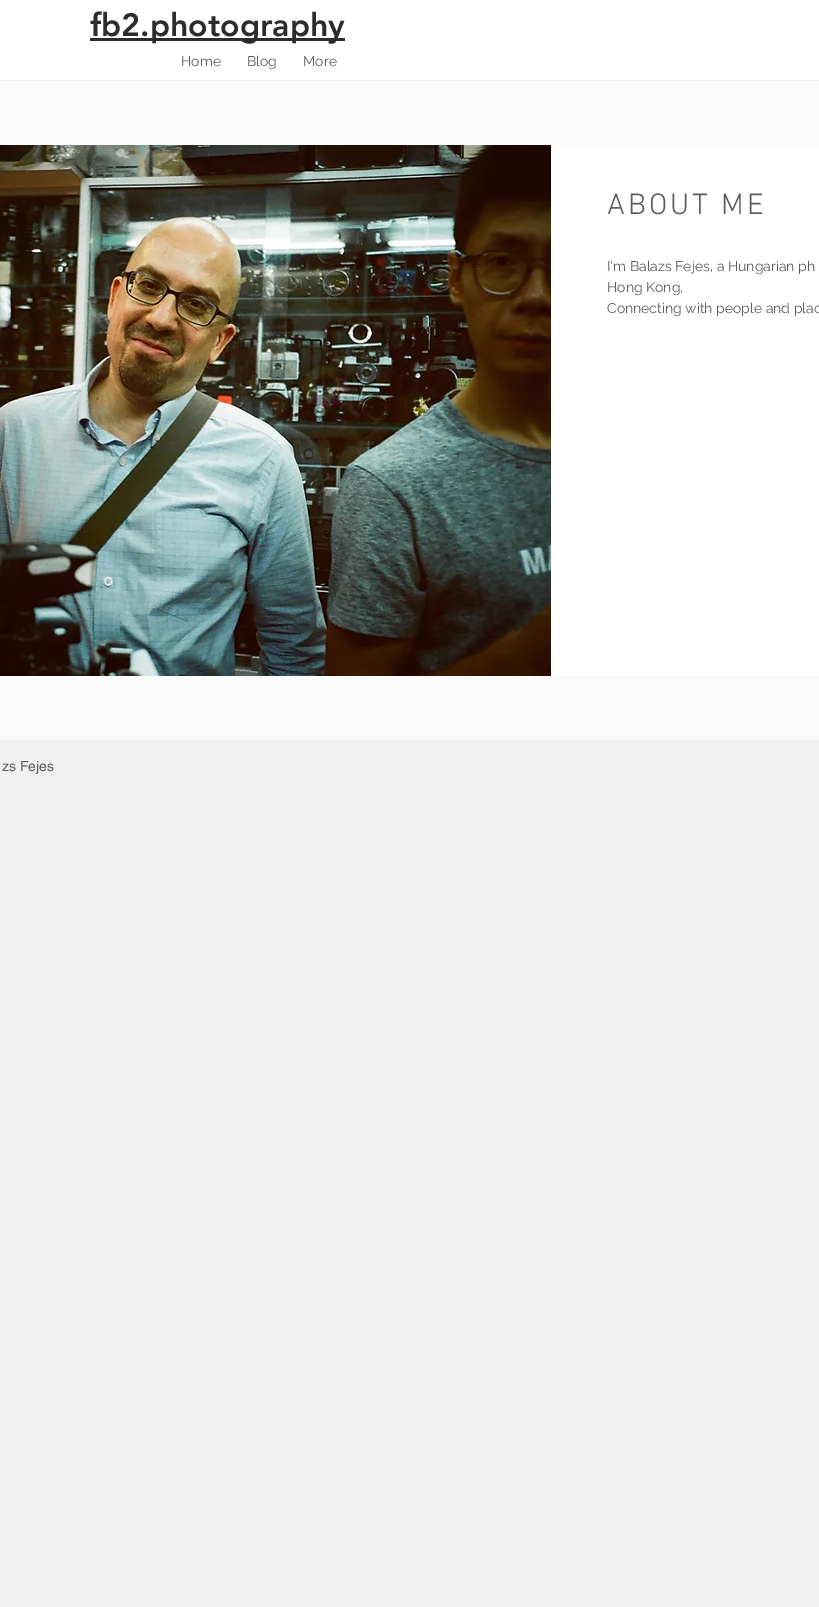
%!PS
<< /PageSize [819 1607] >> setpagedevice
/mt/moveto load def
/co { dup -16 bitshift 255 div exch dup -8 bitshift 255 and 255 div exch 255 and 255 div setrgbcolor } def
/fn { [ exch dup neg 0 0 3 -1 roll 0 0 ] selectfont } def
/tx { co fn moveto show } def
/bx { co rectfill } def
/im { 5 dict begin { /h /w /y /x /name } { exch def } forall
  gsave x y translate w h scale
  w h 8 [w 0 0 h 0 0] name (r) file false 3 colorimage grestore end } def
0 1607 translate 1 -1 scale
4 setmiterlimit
0 0 819 1607 16#F1F1F1 bx
0 0 819 80 16#FFFFFF bx
90 38 255 3 16#2C2C2B bx
0 81 819 659 16#FAFAFA bx
(media/1.raw) 0 145 551 531 im
551 145 268 531 16#FFFFFF bx
(fb2.photography) 90 36 /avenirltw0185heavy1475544-Black 32 16#2C2C2B tx
(Home) 181 66 /Raleway-Regular 14 16#5E5D5D tx
(Blog) 247 66 /Raleway-Regular 14 16#5E5D5D tx
(More) 303 66 /Raleway-Regular 14 16#5E5D5D tx
/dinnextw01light-Light 30 fn
607 214 mt 3 0 (ABOUT ME) ashow
(I'm Balazs Fejes, a Hungarian ph) 607 271 /Raleway-Regular 14 16#5E5D5D tx
(Hong Kong,) 607 292 /Raleway-Regular 14 16#5E5D5D tx
(Connecting with people and plac) 607 313 /Raleway-Regular 14 16#5E5D5D tx
(zs Fejes) 2 771 /helvetica-Regular 14 16#5E5D5D tx
showpage
